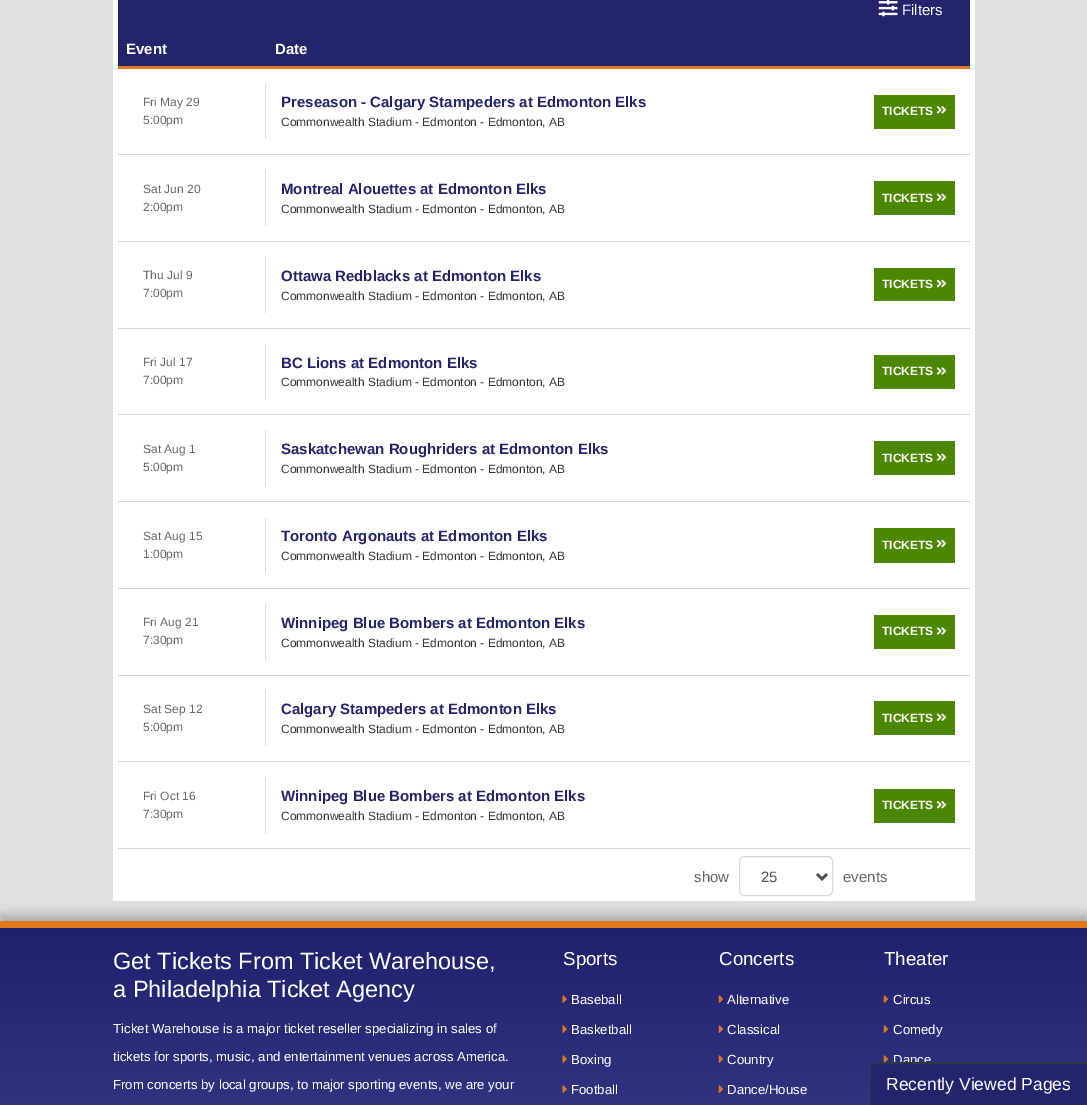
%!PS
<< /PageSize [1087 1105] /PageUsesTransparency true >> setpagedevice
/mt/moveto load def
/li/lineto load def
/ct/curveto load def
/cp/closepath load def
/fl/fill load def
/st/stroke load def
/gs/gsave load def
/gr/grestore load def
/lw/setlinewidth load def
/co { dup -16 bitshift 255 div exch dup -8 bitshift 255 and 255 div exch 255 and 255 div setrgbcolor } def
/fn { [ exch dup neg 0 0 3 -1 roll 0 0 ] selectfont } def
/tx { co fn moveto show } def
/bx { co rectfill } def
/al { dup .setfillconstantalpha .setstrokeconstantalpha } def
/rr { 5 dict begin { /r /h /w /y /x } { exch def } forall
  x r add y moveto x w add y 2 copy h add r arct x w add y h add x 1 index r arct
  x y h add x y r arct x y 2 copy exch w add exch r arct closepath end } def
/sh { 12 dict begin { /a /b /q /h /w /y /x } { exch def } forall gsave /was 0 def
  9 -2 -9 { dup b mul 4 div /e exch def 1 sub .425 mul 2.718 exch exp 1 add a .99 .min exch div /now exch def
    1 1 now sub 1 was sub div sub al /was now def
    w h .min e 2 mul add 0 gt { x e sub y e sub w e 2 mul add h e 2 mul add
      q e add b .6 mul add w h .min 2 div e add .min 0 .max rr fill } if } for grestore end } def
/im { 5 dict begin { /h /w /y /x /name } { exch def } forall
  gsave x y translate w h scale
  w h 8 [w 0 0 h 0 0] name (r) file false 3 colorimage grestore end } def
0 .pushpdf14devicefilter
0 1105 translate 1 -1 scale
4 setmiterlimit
0 0 1087 1105 16#E1E1E1 bx
16#A7A6A7 co
0 915 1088 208 0 6 1 sh
113 0 862 901 16#FFFFFF bx
118 0 852 66 16#23246B bx
(media/1.raw) 878 0 20 17 im
118 66 852 3 16#E0791B bx
265 84 1 55 16#D8D8D8 bx
118 154 852 1 16#D8D8D8 bx
874 95 81 34 16#4C8700 bx
(media/2.raw) 936 106 11 8 im
265 170 1 56 16#D8D8D8 bx
118 241 852 1 16#D8D8D8 bx
874 181 81 34 16#4C8700 bx
(media/3.raw) 936 193 11 8 im
265 256 1 57 16#D8D8D8 bx
118 328 852 1 16#D8D8D8 bx
874 268 81 33 16#4C8700 bx
(media/4.raw) 936 279 11 9 im
265 344 1 56 16#D8D8D8 bx
118 414 852 1 16#D8D8D8 bx
874 355 81 34 16#4C8700 bx
(media/5.raw) 936 367 11 8 im
265 430 1 56 16#D8D8D8 bx
118 501 852 1 16#D8D8D8 bx
874 441 81 34 16#4C8700 bx
(media/3.raw) 936 453 11 8 im
265 518 1 55 16#D8D8D8 bx
118 588 852 1 16#D8D8D8 bx
874 528 81 35 16#4C8700 bx
(media/4.raw) 936 539 11 9 im
265 604 1 56 16#D8D8D8 bx
118 675 852 1 16#D8D8D8 bx
874 615 81 34 16#4C8700 bx
(media/5.raw) 936 627 11 8 im
265 690 1 56 16#D8D8D8 bx
118 761 852 1 16#D8D8D8 bx
874 701 81 34 16#4C8700 bx
(media/3.raw) 936 713 11 8 im
265 778 1 56 16#D8D8D8 bx
118 848 852 1 16#D8D8D8 bx
874 789 81 34 16#4C8700 bx
(media/2.raw) 936 801 11 8 im
16#D8D8D8 co
739.5 856.5 93 39 4.5 rr st
16#495057 co
2.5 lw
817 874 mt 822 879 li 827 874 li st
gs 0 928 mt 1087 928 li 1087 1105 li 0 1105 li cp clip newpath
<< /ShadingType 2 /ColorSpace /DeviceRGB /Coords [544 928 544 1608] /Extend [true true] /Function << /FunctionType 3 /Domain [0 1] /Functions [<< /FunctionType 2 /Domain [0 1] /C0 [.125 .129 .431] /C1 [.275 .278 .58] /N 1 >> << /FunctionType 2 /Domain [0 1] /C0 [.275 .278 .58] /C1 [.431 .431 .733] /N 1 >>] /Bounds [.56] /Encode [0 1 0 1] >> >> shfill gr
0 921 1087 7 16#E0791B bx
(media/6.raw) 562 995 5 8 im
(media/7.raw) 562 1025 5 8 im
(media/8.raw) 562 1055 5 8 im
(media/9.raw) 562 1085 5 8 im
(media/10.raw) 718 995 5 8 im
(media/11.raw) 718 1025 5 8 im
(media/12.raw) 718 1055 5 8 im
(media/13.raw) 718 1085 5 8 im
(media/10.raw) 883 995 5 8 im
(media/11.raw) 883 1025 5 8 im
(media/14.raw) 883 1055 5 7 im
(Filters) 902 15 /LiberationSans-Regular 15 16#FFFFFF tx
(Event) 126 54 /LiberationSans-Bold 15 16#FFFFFF tx
(Date) 275 54 /LiberationSans-Bold 15 16#FFFFFF tx
(Fri May 29) 143 106 /LiberationSans-Regular 12 16#666666 tx
(5:00pm) 143 124 /LiberationSans-Regular 12 16#666666 tx
(Preseason - Calgary Stampeders at Edmonton Elks) 281 107 /LiberationSans-Bold 15 16#23246B tx
(Commonwealth Stadium - Edmonton - Edmonton, AB) 281 126 /LiberationSans-Regular 12 16#343434 tx
(TICKETS) 882 115 /LiberationSans-Bold 12 16#FFFFFF tx
(Sat Jun 20) 143 193 /LiberationSans-Regular 12 16#666666 tx
(2:00pm) 143 211 /LiberationSans-Regular 12 16#666666 tx
(Montreal Alouettes at Edmonton Elks) 281 194 /LiberationSans-Bold 15 16#23246B tx
(Commonwealth Stadium - Edmonton - Edmonton, AB) 281 213 /LiberationSans-Regular 12 16#343434 tx
(TICKETS) 882 202 /LiberationSans-Bold 12 16#FFFFFF tx
(Thu Jul 9) 143 279 /LiberationSans-Regular 12 16#666666 tx
(7:00pm) 143 297 /LiberationSans-Regular 12 16#666666 tx
(Ottawa Redblacks at Edmonton Elks) 281 281 /LiberationSans-Bold 15 16#23246B tx
(Commonwealth Stadium - Edmonton - Edmonton, AB) 281 300 /LiberationSans-Regular 12 16#343434 tx
(TICKETS) 882 288 /LiberationSans-Bold 12 16#FFFFFF tx
(Fri Jul 17) 143 366 /LiberationSans-Regular 12 16#666666 tx
(7:00pm) 143 384 /LiberationSans-Regular 12 16#666666 tx
(BC Lions at Edmonton Elks) 281 368 /LiberationSans-Bold 15 16#23246B tx
(Commonwealth Stadium - Edmonton - Edmonton, AB) 281 386 /LiberationSans-Regular 12 16#343434 tx
(TICKETS) 882 375 /LiberationSans-Bold 12 16#FFFFFF tx
(Sat Aug 1) 143 453 /LiberationSans-Regular 12 16#666666 tx
(5:00pm) 143 471 /LiberationSans-Regular 12 16#666666 tx
(Saskatchewan Roughriders at Edmonton Elks) 281 454 /LiberationSans-Bold 15 16#23246B tx
(Commonwealth Stadium - Edmonton - Edmonton, AB) 281 473 /LiberationSans-Regular 12 16#343434 tx
(TICKETS) 882 462 /LiberationSans-Bold 12 16#FFFFFF tx
(Sat Aug 15) 143 540 /LiberationSans-Regular 12 16#666666 tx
(1:00pm) 143 558 /LiberationSans-Regular 12 16#666666 tx
(Toronto Argonauts at Edmonton Elks) 281 541 /LiberationSans-Bold 15 16#23246B tx
(Commonwealth Stadium - Edmonton - Edmonton, AB) 281 560 /LiberationSans-Regular 12 16#343434 tx
(TICKETS) 882 549 /LiberationSans-Bold 12 16#FFFFFF tx
(Fri Aug 21) 143 626 /LiberationSans-Regular 12 16#666666 tx
(7:30pm) 143 644 /LiberationSans-Regular 12 16#666666 tx
(Winnipeg Blue Bombers at Edmonton Elks) 281 628 /LiberationSans-Bold 15 16#23246B tx
(Commonwealth Stadium - Edmonton - Edmonton, AB) 281 647 /LiberationSans-Regular 12 16#343434 tx
(TICKETS) 882 635 /LiberationSans-Bold 12 16#FFFFFF tx
(Sat Sep 12) 143 713 /LiberationSans-Regular 12 16#666666 tx
(5:00pm) 143 731 /LiberationSans-Regular 12 16#666666 tx
(Calgary Stampeders at Edmonton Elks) 281 714 /LiberationSans-Bold 15 16#23246B tx
(Commonwealth Stadium - Edmonton - Edmonton, AB) 281 733 /LiberationSans-Regular 12 16#343434 tx
(TICKETS) 882 722 /LiberationSans-Bold 12 16#FFFFFF tx
(Fri Oct 16) 143 800 /LiberationSans-Regular 12 16#666666 tx
(7:30pm) 143 818 /LiberationSans-Regular 12 16#666666 tx
(Winnipeg Blue Bombers at Edmonton Elks) 281 801 /LiberationSans-Bold 15 16#23246B tx
(Commonwealth Stadium - Edmonton - Edmonton, AB) 281 820 /LiberationSans-Regular 12 16#343434 tx
(TICKETS) 882 809 /LiberationSans-Bold 12 16#FFFFFF tx
(show) 694 882 /LiberationSans-Regular 15 16#666666 tx
(25) 761 882 /LiberationSans-Regular 15 16#495057 tx
(events) 843 882 /LiberationSans-Regular 15 16#666666 tx
(Get Tickets From Ticket Warehouse,) 113 969 /LiberationSans-Regular 23.5 16#FFFFFF tx
(a Philadelphia Ticket Agency) 113 997 /LiberationSans-Regular 23.5 16#FFFFFF tx
(Ticket Warehouse is a major ticket reseller specializing in sales of) 113 1033 /LiberationSans-Regular 13.2 16#FFFFFF tx
(tickets for sports, music, and entertainment venues across America.) 113 1061 /LiberationSans-Regular 13.2 16#FFFFFF tx
(From concerts by local groups, to major sporting events, we are your) 113 1089 /LiberationSans-Regular 13.2 16#FFFFFF tx
(Sports) 563 965 /LiberationSans-Regular 18.75 16#FFFFFF tx
(Baseball) 571 1004 /LiberationSans-Regular 13.2 16#FFFFFF tx
(Basketball) 571 1034 /LiberationSans-Regular 13.2 16#FFFFFF tx
(Boxing) 571 1064 /LiberationSans-Regular 13.2 16#FFFFFF tx
(Football) 571 1094 /LiberationSans-Regular 13.2 16#FFFFFF tx
(Concerts) 719 965 /LiberationSans-Regular 18.75 16#FFFFFF tx
(Alternative) 727 1004 /LiberationSans-Regular 13.2 16#FFFFFF tx
(Classical) 727 1034 /LiberationSans-Regular 13.2 16#FFFFFF tx
(Country) 727 1064 /LiberationSans-Regular 13.2 16#FFFFFF tx
(Dance/House) 727 1094 /LiberationSans-Regular 13.2 16#FFFFFF tx
(Theater) 884 965 /LiberationSans-Regular 18.75 16#FFFFFF tx
(Circus) 893 1004 /LiberationSans-Regular 13.2 16#FFFFFF tx
(Comedy) 893 1034 /LiberationSans-Regular 13.2 16#FFFFFF tx
(Dance) 893 1064 /LiberationSans-Regular 13.2 16#FFFFFF tx
16#23246B co
875 1063 mt 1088 1063 li 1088 1105 li 870 1105 li 870 1068 li 870 1065 872 1063 875 1063 ct cp fl
16#2D3A42 co
875 1064 mt 872 1065 li 871 1064 li 873 1062 li 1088 1062 li 1086 1064 li cp fl
870 1105 mt 871 1104 li 871 1068 li 871 1066 872 1065 872 1065 ct 871 1064 li 870 1065 870 1066 870 1068 ct cp fl
(Recently Viewed Pages) 886 1090 /LiberationSans-Regular 17.5 16#FFFFFF tx
.poppdf14devicefilter showpage
